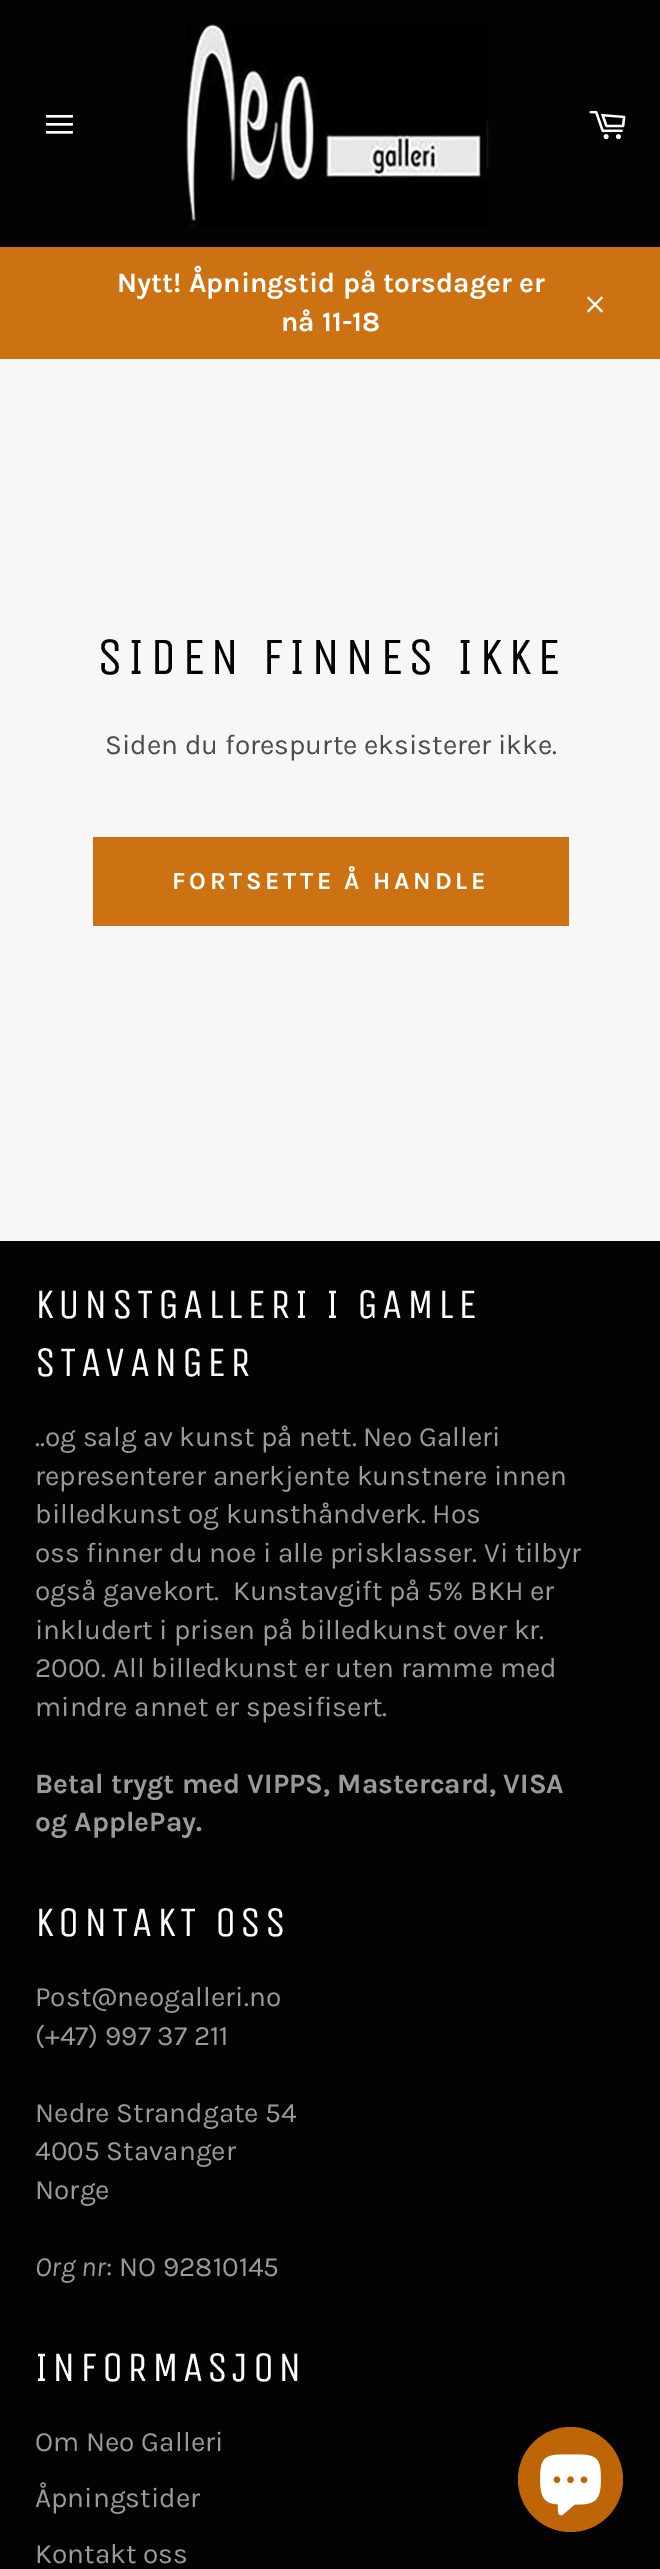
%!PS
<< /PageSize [660 2569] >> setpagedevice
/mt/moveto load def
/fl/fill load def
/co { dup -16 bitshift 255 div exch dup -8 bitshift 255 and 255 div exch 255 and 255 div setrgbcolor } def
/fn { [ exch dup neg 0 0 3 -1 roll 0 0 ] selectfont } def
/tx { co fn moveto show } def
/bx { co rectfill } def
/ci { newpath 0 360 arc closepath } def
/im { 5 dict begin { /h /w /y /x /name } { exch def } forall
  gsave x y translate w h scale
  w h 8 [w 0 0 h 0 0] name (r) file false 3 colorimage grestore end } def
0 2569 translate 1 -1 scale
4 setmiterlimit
0 0 660 2569 16#F7F7F7 bx
0 0 660 247 16#030303 bx
(media/1.raw) 46 114 27 20 im
(media/2.raw) 186 24 303 203 im
(media/3.raw) 589 110 37 30 im
0 247 660 112 16#CC7212 bx
(media/4.raw) 587 296 16 17 im
93 837 476 89 16#CC7212 bx
0 1241 660 1328 16#030303 bx
16#BE6607 co
570.5 2479.5 52.5 ci fl
(media/5.raw) 540 2454 61 62 im
(Nytt! Åpningstid på torsdager er) 117 292 /Karla-Bold 28 16#FFFFFF tx
(nå 11-18) 281 331 /Karla-Bold 28 16#FFFFFF tx
/UnicaOne-Regular 52.5 fn
16#030303 co
97 674 mt 5.25 0 (SIDEN FINNES IKKE) ashow
(Siden du forespurte eksisterer ikke.) 105 754 /Karla-Regular 28 16#4E4C4A tx
/Karla-Bold 24.5 fn
16#FFFFFF co
172 889 mt 3.7 0 (FORTSETTE Å HANDLE) ashow
/UnicaOne-Regular 42 fn
35 1318 mt 4.25 0 (KUNSTGALLERI I GAMLE) ashow
35 1376 mt 4.25 0 (STAVANGER) ashow
(..og salg av kunst på nett. Neo Galleri) 35 1446 /Karla-Regular 28 16#9A9A9A tx
(representerer anerkjente kunstnere innen) 35 1485 /Karla-Regular 28 16#9A9A9A tx
(billedkunst og kunsthåndverk. Hos) 35 1523 /Karla-Regular 28 16#9A9A9A tx
(oss finner du noe i alle prisklasser. Vi tilbyr) 35 1562 /Karla-Regular 28 16#9A9A9A tx
(også gavekort.  Kunstavgift på 5% BKH er) 35 1600 /Karla-Regular 28 16#9A9A9A tx
(inkludert i prisen på billedkunst over kr.) 35 1639 /Karla-Regular 28 16#9A9A9A tx
(2000. All billedkunst er uten ramme med) 35 1677 /Karla-Regular 28 16#9A9A9A tx
(mindre annet er spesifisert.) 35 1716 /Karla-Regular 28 16#9A9A9A tx
(Betal trygt med VIPPS, Mastercard, VISA) 35 1793 /Karla-Bold 28 16#9A9A9A tx
(og ApplePay.) 35 1831 /Karla-Bold 28 16#9A9A9A tx
/UnicaOne-Regular 42 fn
16#FFFFFF co
35 1936 mt 4.25 0 (KONTAKT OSS) ashow
(Post@neogalleri.no) 35 2006 /Karla-Regular 28 16#9A9A9A tx
(\(+47\) 997 37 211) 35 2045 /Karla-Regular 28 16#9A9A9A tx
(Nedre Strandgate 54) 35 2122 /Karla-Regular 28 16#9A9A9A tx
(4005 Stavanger) 35 2160 /Karla-Regular 28 16#9A9A9A tx
(Norge) 35 2199 /Karla-Regular 28 16#9A9A9A tx
(Org nr) 35 2276 /Karla-Italic 28 16#9A9A9A tx
(: NO 92810145) 106 2276 /Karla-Regular 28 16#9A9A9A tx
/UnicaOne-Regular 42 fn
16#FFFFFF co
35 2381 mt 4.25 0 (INFORMASJON) ashow
(Om Neo Galleri) 35 2451 /Karla-Regular 28 16#9A9A9A tx
(Åpningstider) 35 2507 /Karla-Regular 28 16#9A9A9A tx
(Kontakt oss) 35 2563 /Karla-Regular 28 16#9A9A9A tx
showpage
